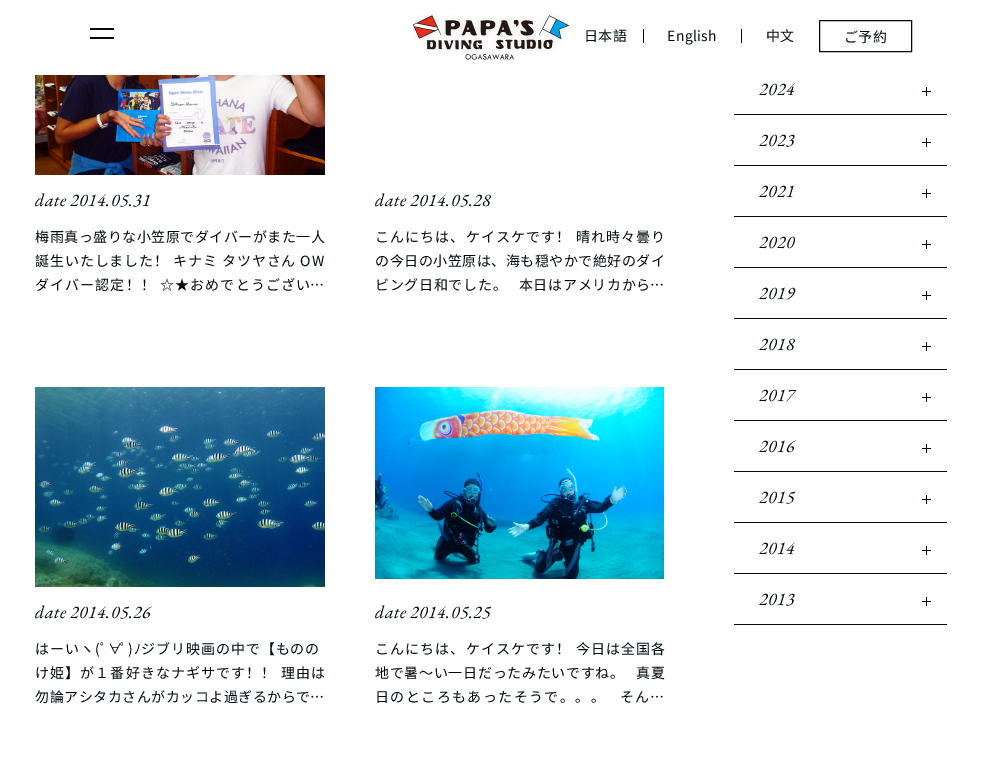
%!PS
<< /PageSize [982 770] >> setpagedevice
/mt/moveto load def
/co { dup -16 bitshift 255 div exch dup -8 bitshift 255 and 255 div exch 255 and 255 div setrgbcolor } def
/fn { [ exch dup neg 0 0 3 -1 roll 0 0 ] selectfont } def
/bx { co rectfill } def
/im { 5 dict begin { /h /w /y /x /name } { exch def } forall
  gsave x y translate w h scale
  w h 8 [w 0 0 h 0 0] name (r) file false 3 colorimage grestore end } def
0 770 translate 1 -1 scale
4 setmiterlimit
0 0 982 770 16#FFFFFF bx
90 28 24 2 16#000A0F bx
90 37 24 2 16#000A0F bx
(media/1.raw) 412 14 158 46 im
643 29 1 14 16#080808 bx
741 29 1 14 16#080808 bx
16#000A0F co
819.5 20.5 92 31 rectstroke
(media/2.raw) 35 75 290 100 im
(media/3.raw) 35 387 290 200 im
(media/4.raw) 375 387 289 192 im
734 624 213 1 16#000A0F bx
926 87 1 9 16#000A0F bx
922 91 9 1 16#000A0F bx
734 114 213 1 16#000A0F bx
926 138 1 9 16#000A0F bx
922 142 9 1 16#000A0F bx
734 165 213 1 16#000A0F bx
926 189 1 9 16#000A0F bx
922 193 9 1 16#000A0F bx
734 216 213 1 16#000A0F bx
926 240 1 9 16#000A0F bx
922 244 9 1 16#000A0F bx
734 267 213 1 16#000A0F bx
926 291 1 9 16#000A0F bx
922 295 9 1 16#000A0F bx
734 318 213 1 16#000A0F bx
926 342 1 9 16#000A0F bx
922 346 9 1 16#000A0F bx
734 369 213 1 16#000A0F bx
926 393 1 9 16#000A0F bx
922 397 9 1 16#000A0F bx
734 420 213 1 16#000A0F bx
926 444 1 9 16#000A0F bx
922 448 9 1 16#000A0F bx
734 471 213 1 16#000A0F bx
926 495 1 9 16#000A0F bx
922 499 9 1 16#000A0F bx
734 522 213 1 16#000A0F bx
926 546 1 9 16#000A0F bx
922 550 9 1 16#000A0F bx
734 573 213 1 16#000A0F bx
926 597 1 9 16#000A0F bx
922 601 9 1 16#000A0F bx
/NotoSansSC-Regular 14 fn
584 41 mt .4 0 (日本語) ashow
667 41 mt .4 0 (English) ashow
766 41 mt .4 0 (中文) ashow
844 42 mt .4 0 (ご予約) ashow
/EBGaramond-Italic 18 fn
35 206 mt .4 0 (date 2014.05.31) ashow
/NotoSansSC-Regular 14 fn
35 242 mt .5 0 (梅雨真っ盛りな小笠原でダイバーがまた一人) ashow
35 266 mt .9 0 (誕生いたしました！ キナミ タツヤさん OW) ashow
35 290 mt 1.1 0 (ダイバー認定！！ ☆★おめでとうござい) ashow
310 290 mt .4 0 (…) ashow
/EBGaramond-Italic 18 fn
375 206 mt .4 0 (date 2014.05.28) ashow
/NotoSansSC-Regular 14 fn
375 242 mt 1.1 0 (こんにちは、ケイスケです！ 晴れ時々曇り) ashow
375 266 mt .5 0 (の今日の小笠原は、海も穏やかで絶好のダイ) ashow
375 290 mt .7 0 (ビング日和でした。   本日はアメリカから) ashow
650 290 mt .4 0 (…) ashow
/EBGaramond-Italic 18 fn
35 618 mt .4 0 (date 2014.05.26) ashow
/NotoSansSC-Regular 14 fn
35 654 mt .9 0 (はーいヽ\(ﾟ∀) ashow
120 654 mt .9 0 (ﾟ\)ﾉジブリ映画の中で【ものの) ashow
35 678 mt 1.1 0 (け姫】が１番好きなナギサです！！ 理由は) ashow
35 702 mt .5 0 (勿論アシタカさんがカッコよ過ぎるからで) ashow
310 702 mt .4 0 (…) ashow
/EBGaramond-Italic 18 fn
375 618 mt .4 0 (date 2014.05.25) ashow
/NotoSansSC-Regular 14 fn
375 654 mt 1.1 0 (こんにちは、ケイスケです！ 今日は全国各) ashow
375 678 mt .7 0 (地で暑〜い一日だったみたいですね。   真夏) ashow
375 702 mt 1.4 0 (日のところもあったそうで。。。   そん) ashow
650 702 mt .4 0 (…) ashow
/EBGaramond-Italic 18 fn
759 95 mt .4 0 (2024) ashow
759 146 mt .4 0 (2023) ashow
759 197 mt .4 0 (2021) ashow
759 248 mt .4 0 (2020) ashow
759 299 mt .4 0 (2019) ashow
759 350 mt .4 0 (2018) ashow
759 401 mt .4 0 (2017) ashow
759 452 mt .4 0 (2016) ashow
759 503 mt .4 0 (2015) ashow
759 554 mt .4 0 (2014) ashow
759 605 mt .4 0 (2013) ashow
showpage
